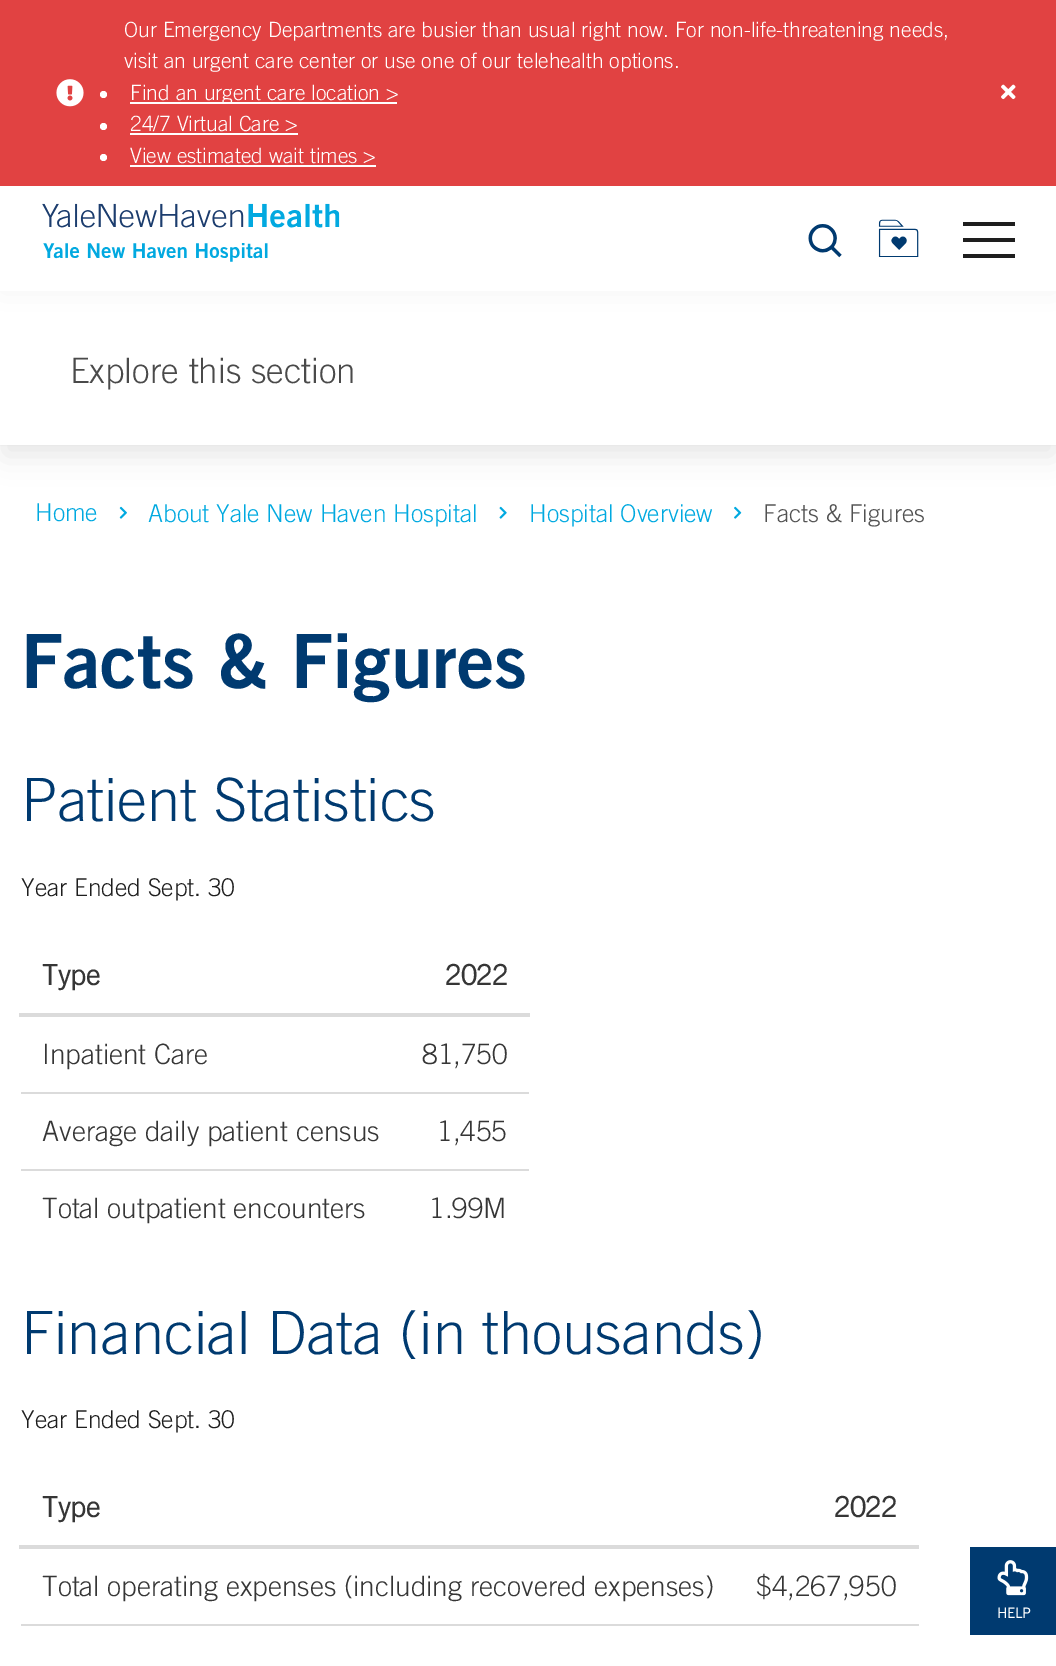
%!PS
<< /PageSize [1056 1666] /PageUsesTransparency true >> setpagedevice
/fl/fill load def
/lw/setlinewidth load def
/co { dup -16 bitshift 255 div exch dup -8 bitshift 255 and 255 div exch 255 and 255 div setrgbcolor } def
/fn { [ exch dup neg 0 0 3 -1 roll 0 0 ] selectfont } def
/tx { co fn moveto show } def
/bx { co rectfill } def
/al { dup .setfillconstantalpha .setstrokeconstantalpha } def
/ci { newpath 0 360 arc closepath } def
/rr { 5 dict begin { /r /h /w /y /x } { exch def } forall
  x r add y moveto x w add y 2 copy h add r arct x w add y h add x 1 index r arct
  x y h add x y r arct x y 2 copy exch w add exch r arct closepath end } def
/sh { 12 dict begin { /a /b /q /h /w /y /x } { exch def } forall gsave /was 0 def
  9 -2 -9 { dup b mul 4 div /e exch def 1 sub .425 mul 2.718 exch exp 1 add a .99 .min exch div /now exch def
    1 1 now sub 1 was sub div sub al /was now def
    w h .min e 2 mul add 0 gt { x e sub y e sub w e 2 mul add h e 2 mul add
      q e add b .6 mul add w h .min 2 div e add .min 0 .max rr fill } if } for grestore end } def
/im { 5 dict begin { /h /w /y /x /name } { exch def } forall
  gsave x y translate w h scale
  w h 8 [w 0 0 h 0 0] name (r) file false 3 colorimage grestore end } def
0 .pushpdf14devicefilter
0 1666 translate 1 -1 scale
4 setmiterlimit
0 0 1056 1666 16#FFFFFF bx
16#FAFAFA co
2 lw
-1 290 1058 155 rectstroke
16#0A0A0A co
4 308 1050 147 0 14 .1 sh
0 291 1056 154 16#FFFFFF bx
16#CBCBCB co
0 187 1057 105 0 16 .2 sh
0 0 1056 186 16#E14242 bx
(media/1.raw) 56 79 28 28 im
16#FFFFFF co
103.5 94.5 3.5 ci fl
130 102 267 2 16#FFFFFF bx
103.5 126.5 3.5 ci fl
130 133 168 2 16#FFFFFF bx
103.5 157.5 3.5 ci fl
130 165 246 2 16#FFFFFF bx
(media/2.raw) 1001 84 15 16 im
0 186 1056 105 16#FFFFFF bx
(media/3.raw) 42 203 298 59 im
(media/4.raw) 808 224 34 34 im
(media/5.raw) 878 219 41 38 im
963 222 52 4 16#1E1E1E bx
963 238 52 4 16#1E1E1E bx
963 254 52 4 16#1E1E1E bx
(media/6.raw) 119 506 8 13 im
(media/7.raw) 499 506 8 13 im
(media/8.raw) 734 506 8 13 im
19 1013 511 4 16#DBDBDB bx
21 1092 508 2 16#DBDBDB bx
21 1169 508 2 16#DBDBDB bx
19 1545 900 4 16#DBDBDB bx
21 1624 898 2 16#DBDBDB bx
970 1547 86 88 16#003A70 bx
(media/9.raw) 997 1560 32 36 im
(Our Emergency Departments are busier than usual right now. For non-life-threatening needs,) 124 37 /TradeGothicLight-Light 21 16#FFFFFF tx
(visit an urgent care center or use one of our telehealth options.) 124 68 /TradeGothicLight-Light 21 16#FFFFFF tx
(Find an urgent care location >) 130 100 /TradeGothicLight-Light 21 16#FFFFFF tx
(24/7 Virtual Care >) 130 131 /TradeGothicLight-Light 21 16#FFFFFF tx
(View estimated wait times >) 130 163 /TradeGothicLight-Light 21 16#FFFFFF tx
(Explore this section) 70 383 /TradeGothicLight-Light 35 16#4A4A4A tx
(Home) 35 521 /TradeGothicLight-Light 24.5 16#00A9E0 tx
(About Yale New Haven Hospital) 148 522 /TradeGothicLight-Light 24.5 16#00A9E0 tx
(Hospital Overview) 529 522 /TradeGothicLight-Light 24.5 16#00A9E0 tx
(Facts & Figures) 763 522 /TradeGothicLight-Light 24.5 16#525252 tx
(Facts & Figures) 21 688 /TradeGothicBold-Bold 74.75 16#003A70 tx
(Patient Statistics) 21 821 /TradeGothicLight-Light 59.75 16#003A70 tx
(Year Ended Sept. 30) 21 896 /TradeGothicLight-Light 24.5 16#1E1E1E tx
(Type) 42 985 /TradeGothicLight-Bold 28 16#363636 tx
(2022) 445 985 /TradeGothicLight-Bold 28 16#363636 tx
(Inpatient Care) 42 1064 /TradeGothicLight-Light 28 16#363636 tx
(81,750) 422 1064 /TradeGothicLight-Light 28 16#363636 tx
(Average daily patient census) 42 1141 /TradeGothicLight-Light 28 16#363636 tx
(1,455) 437 1141 /TradeGothicLight-Light 28 16#363636 tx
(Total outpatient encounters) 42 1218 /TradeGothicLight-Light 28 16#363636 tx
(1.99M) 429 1218 /TradeGothicLight-Light 28 16#363636 tx
(Financial Data \(in thousands\)) 21 1354 /TradeGothicLight-Light 59.75 16#003A70 tx
(Year Ended Sept. 30) 21 1428 /TradeGothicLight-Light 24.5 16#1E1E1E tx
(Type) 42 1517 /TradeGothicLight-Bold 28 16#363636 tx
(2022) 834 1517 /TradeGothicLight-Bold 28 16#363636 tx
(Total operating expenses \(including recovered expenses\)) 42 1596 /TradeGothicLight-Light 28 16#363636 tx
($4,267,950) 756 1596 /TradeGothicLight-Light 28 16#363636 tx
(HELP) 997 1618 /TradeGothicLight-Bold 14 16#FFFFFF tx
.poppdf14devicefilter showpage
